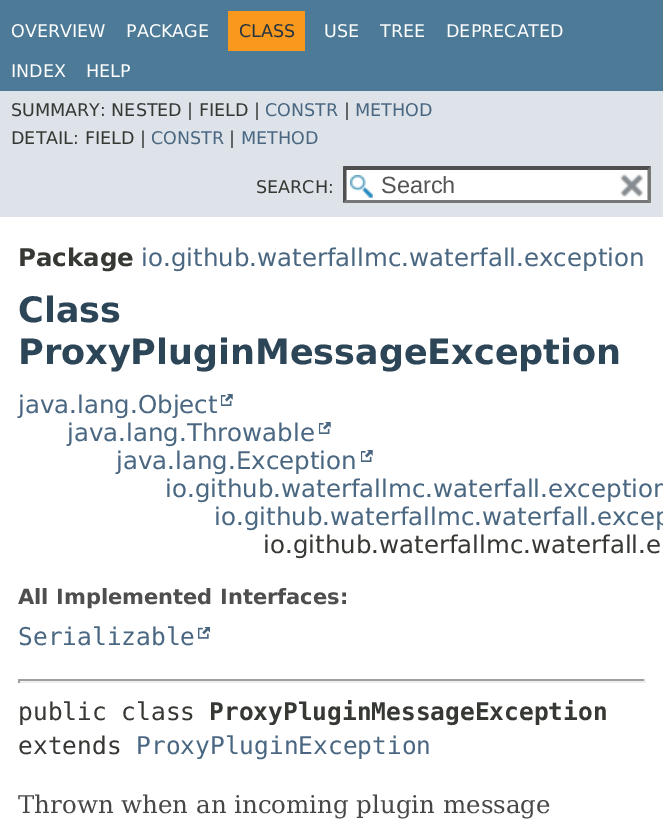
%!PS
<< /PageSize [663 824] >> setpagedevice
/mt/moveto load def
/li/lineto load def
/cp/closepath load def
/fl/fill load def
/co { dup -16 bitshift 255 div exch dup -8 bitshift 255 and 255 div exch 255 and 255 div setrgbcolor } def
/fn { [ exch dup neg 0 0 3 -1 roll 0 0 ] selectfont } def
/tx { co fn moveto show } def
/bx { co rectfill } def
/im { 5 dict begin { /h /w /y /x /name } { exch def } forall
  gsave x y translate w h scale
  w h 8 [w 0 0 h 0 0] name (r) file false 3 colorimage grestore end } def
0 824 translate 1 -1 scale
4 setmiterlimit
0 0 663 824 16#FFFFFF bx
0 0 663 91 16#4D7A97 bx
228 11 77 40 16#F8981D bx
0 91 663 126 16#DEE3E9 bx
343 166 308 37 16#FFFFFF bx
(media/1.raw) 350 175 23 23 im
16#4F4F4F co
343 166 mt 651 166 li 648 170 li 346 170 li cp fl
16#767676 co
651 166 mt 651 203 li 647.5 199.5 li 647.5 170 li cp fl
651 203 mt 343 203 li 346 200 li 648 200 li cp fl
16#4F4F4F co
343 203 mt 343 166 li 346.5 170 li 346.5 199.5 li cp fl
(media/2.raw) 620 174 23 23 im
(media/3.raw) 221 394 12 12 im
(media/3.raw) 319 422 12 12 im
(media/3.raw) 361 450 12 12 im
(media/4.raw) 198 627 12 12 im
18 679 628 2 16#9F9F9F bx
644 679 2 4 16#EEEEEE bx
18 681 628 2 16#EEEEEE bx
18 679 2 4 16#9F9F9F bx
(OVERVIEW) 11 37 /DejaVuSans-Regular 17.5 16#FFFFFF tx
(PACKAGE) 126 37 /DejaVuSans-Regular 17.5 16#FFFFFF tx
(CLASS) 239 37 /DejaVuSans-Regular 17.5 16#253441 tx
(USE) 324 37 /DejaVuSans-Regular 17.5 16#FFFFFF tx
(TREE) 380 37 /DejaVuSans-Regular 17.5 16#FFFFFF tx
(DEPRECATED) 446 37 /DejaVuSans-Regular 17.5 16#FFFFFF tx
(INDEX) 11 77 /DejaVuSans-Regular 17.5 16#FFFFFF tx
(HELP) 86 77 /DejaVuSans-Regular 17.5 16#FFFFFF tx
(SUMMARY: NESTED | FIELD |) 11 116 /DejaVuSans-Regular 17.5 16#353833 tx
(CONSTR) 265 116 /DejaVuSans-Regular 17.5 16#4A6782 tx
(|) 344 116 /DejaVuSans-Regular 17.5 16#353833 tx
(METHOD) 355 116 /DejaVuSans-Regular 17.5 16#4A6782 tx
(DETAIL: FIELD |) 11 144 /DejaVuSans-Regular 17.5 16#353833 tx
(CONSTR) 151 144 /DejaVuSans-Regular 17.5 16#4A6782 tx
(|) 229 144 /DejaVuSans-Regular 17.5 16#353833 tx
(METHOD) 241 144 /DejaVuSans-Regular 17.5 16#4A6782 tx
(SEARCH:) 256 193 /DejaVuSans-Regular 17.5 16#353833 tx
(Search) 381 193 /LiberationSans-Regular 23.5 16#545454 tx
(Package) 18 266 /DejaVuSans-Bold 24.5 16#353833 tx
(io.github.waterfallmc.waterfall.exception) 141 266 /DejaVuSans-Regular 24.5 16#4A6782 tx
(Class) 18 322 /DejaVuSans-Bold 35 16#2C4557 tx
(ProxyPluginMessageException) 18 364 /DejaVuSans-Bold 35 16#2C4557 tx
(java.lang.Object) 18 413 /DejaVuSans-Regular 24.5 16#4A6782 tx
(java.lang.Throwable) 67 441 /DejaVuSans-Regular 24.5 16#4A6782 tx
(java.lang.Exception) 116 469 /DejaVuSans-Regular 24.5 16#4A6782 tx
(io.github.waterfallmc.waterfall.exception) 165 497 /DejaVuSans-Regular 24.5 16#4A6782 tx
(io.github.waterfallmc.waterfall.excep) 214 525 /DejaVuSans-Regular 24.5 16#4A6782 tx
(io.github.waterfallmc.waterfall.e) 263 553 /DejaVuSans-Regular 24.5 16#353833 tx
(All Implemented Interfaces:) 18 604 /DejaVuSans-Bold 21 16#4E4E4E tx
(Serializable) 18 645 /DejaVuSansMono-Regular 24.5 16#4A6782 tx
(public class) 18 720 /DejaVuSansMono-Regular 24.5 16#353833 tx
(ProxyPluginMessageException) 209 720 /DejaVuSansMono-Bold 24.5 16#353833 tx
(extends) 18 754 /DejaVuSansMono-Regular 24.5 16#353833 tx
(ProxyPluginException) 136 754 /DejaVuSansMono-Regular 24.5 16#4A6782 tx
(Thrown when an incoming plugin message) 18 813 /DejaVuSerif-Regular 24.5 16#474747 tx
showpage
